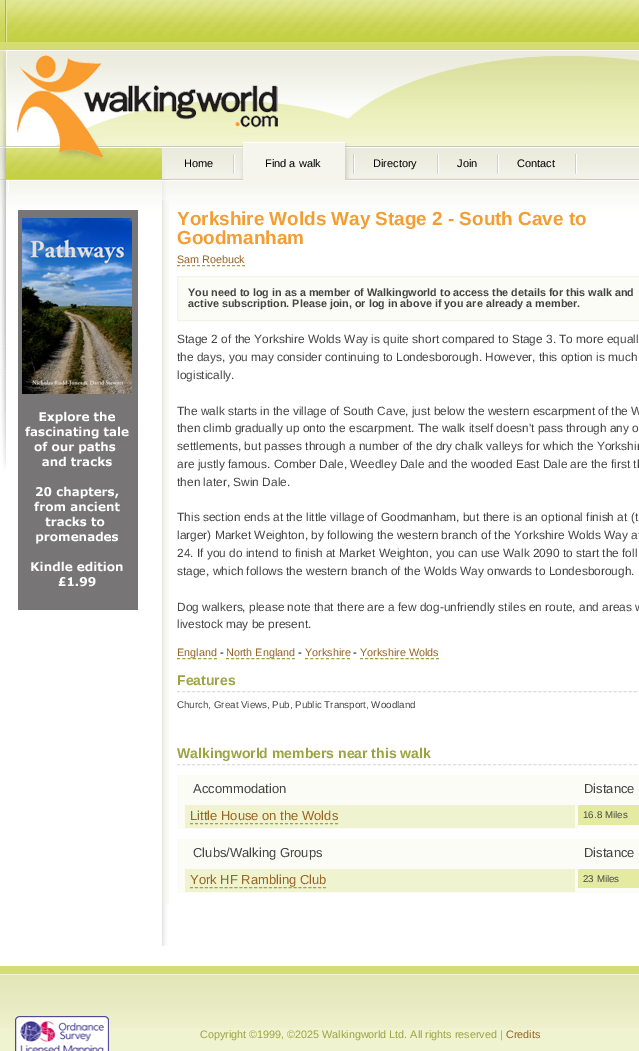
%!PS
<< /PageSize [639 1051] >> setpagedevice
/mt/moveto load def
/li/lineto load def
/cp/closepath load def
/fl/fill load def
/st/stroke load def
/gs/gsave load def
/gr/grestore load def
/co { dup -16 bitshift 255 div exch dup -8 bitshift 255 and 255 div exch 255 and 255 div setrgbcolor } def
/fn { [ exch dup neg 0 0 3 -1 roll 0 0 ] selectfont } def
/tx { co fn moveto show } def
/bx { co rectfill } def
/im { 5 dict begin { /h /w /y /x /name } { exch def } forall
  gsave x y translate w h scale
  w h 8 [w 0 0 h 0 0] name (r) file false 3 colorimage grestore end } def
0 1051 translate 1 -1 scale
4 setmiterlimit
0 0 639 1051 16#FFFFFF bx
(media/1.raw) 0 716 170 230 im
(media/2.raw) 0 0 639 716 im
(media/3.raw) 6 53 272 126 im
(media/4.raw) 170 178 6 2 im
(media/5.raw) 176 154 63 27 im
(media/6.raw) 239 143 4 38 im
(media/7.raw) 243 142 116 39 im
(media/4.raw) 359 178 6 2 im
(media/8.raw) 365 154 78 26 im
(media/4.raw) 443 178 6 2 im
(media/9.raw) 449 154 54 26 im
(media/4.raw) 503 178 6 2 im
(media/10.raw) 509 154 72 26 im
(media/11.raw) 18 210 120 400 im
(media/12.raw) 162 200 7 704 im
16#9CA341 co
[3 2] 0 setdash
177 265.5 mt 245 265.5 li st
16#FBFCF5 co
177.5 276.5 mt 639.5 276.5 li 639.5 320.5 li 177.5 320.5 li cp gs fl gr
16#F2F3EB co
[] 0 setdash
st
16#9CA341 co
[3 2.29] 0 setdash
177 658.5 mt 217 658.5 li st
[3 2.08] 0 setdash
226 658.5 mt 295 658.5 li st
[3 2.25] 0 setdash
305 658.5 mt 350 658.5 li st
[3 2.07] 0 setdash
360 658.5 mt 439 658.5 li st
16#DDDDDD co
[3 2.02] 0 setdash
177 691.5 mt 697 691.5 li st
177 764.5 mt 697 764.5 li st
177 775 462 54 16#FBFCF5 bx
185 805 390 23 16#F0F3D0 bx
16#9CA341 co
[3 2] 0 setdash
190 823.5 mt 338 823.5 li st
578 805 61 20 16#E4EAA0 bx
177 839 462 54 16#FBFCF5 bx
185 869 390 23 16#F0F3D0 bx
16#9CA341 co
[3 1.93] 0 setdash
190 887.5 mt 326 887.5 li st
578 869 61 19 16#E4EAA0 bx
0 1028 639 23 16#F0F3D0 bx
(media/13.raw) 0 946 639 82 im
(media/14.raw) 15 1016 94 35 im
(Home) 184 167 /LiberationSans-Regular 11 16#000000 tx
(Find a walk) 265 167 /LiberationSans-Regular 11 16#000000 tx
(Directory) 373 167 /LiberationSans-Regular 11 16#000000 tx
(Join) 457 167 /LiberationSans-Regular 11 16#000000 tx
(Contact) 517 167 /LiberationSans-Regular 11 16#000000 tx
(Yorkshire Wolds Way Stage 2 - South Cave to) 177 225 /LiberationSans-Bold 18.9 16#F49D32 tx
(Goodmanham) 177 244 /LiberationSans-Bold 18.9 16#F49D32 tx
(Sam Roebuck) 177 263 /LiberationSans-Regular 10.8 16#996321 tx
(You need to log in as a member of Walkingworld to access the details for this walk and) 188 296 /LiberationSans-Bold 10.8 16#444444 tx
(active subscription. Please join, or log in above if you are already a member.) 188 307 /LiberationSans-Bold 10.8 16#444444 tx
(Stage 2 of the Yorkshire Wolds Way is quite short compared to Stage 3. To more equall) 177 343 /LiberationSans-Regular 11.9 16#444444 tx
(the days, you may consider continuing to Londesborough. However, this option is much) 177 361 /LiberationSans-Regular 11.9 16#444444 tx
(logistically.) 177 379 /LiberationSans-Regular 11.9 16#444444 tx
(The walk starts in the village of South Cave, just below the western escarpment of the W) 177 415 /LiberationSans-Regular 11.9 16#444444 tx
(then climb gradually up onto the escarpment. The walk itself doesn't pass through any o) 177 432 /LiberationSans-Regular 11.9 16#444444 tx
(settlements, but passes through a number of the dry chalk valleys for which the Yorkshir) 177 450 /LiberationSans-Regular 11.9 16#444444 tx
(are justly famous. Comber Dale, Weedley Dale and the wooded East Dale are the first th) 177 468 /LiberationSans-Regular 11.9 16#444444 tx
(then later, Swin Dale.) 177 486 /LiberationSans-Regular 11.9 16#444444 tx
(This section ends at the little village of Goodmanham, but there is an optional finish at \(t) 177 521 /LiberationSans-Regular 11.9 16#444444 tx
(larger\) Market Weighton, by following the western branch of the Yorkshire Wolds Way at) 177 539 /LiberationSans-Regular 11.9 16#444444 tx
(24. If you do intend to finish at Market Weighton, you can use Walk 2090 to start the foll) 177 557 /LiberationSans-Regular 11.9 16#444444 tx
(stage, which follows the western branch of the Wolds Way onwards to Londesborough.) 177 575 /LiberationSans-Regular 11.9 16#444444 tx
(Dog walkers, please note that there are a few dog-unfriendly stiles en route, and areas w) 177 611 /LiberationSans-Regular 11.9 16#444444 tx
(livestock may be present.) 177 628 /LiberationSans-Regular 11.9 16#444444 tx
(England) 177 656 /LiberationSans-Regular 10.8 16#996321 tx
(-) 220 656 /LiberationSans-Bold 10.8 16#444444 tx
(North England) 226 656 /LiberationSans-Regular 10.8 16#996321 tx
(-) 298 656 /LiberationSans-Bold 10.8 16#444444 tx
(Yorkshire) 305 656 /LiberationSans-Regular 10.8 16#996321 tx
(-) 353 656 /LiberationSans-Bold 10.8 16#444444 tx
(Yorkshire Wolds) 360 656 /LiberationSans-Regular 10.8 16#996321 tx
(Features) 177 685 /LiberationSans-Bold 14 16#9CA341 tx
(Church, Great Views, Pub, Public Transport, Woodland) 177 708 /LiberationSans-Regular 9.75 16#444444 tx
(Walkingworld members near this walk) 177 758 /LiberationSans-Bold 14 16#9CA341 tx
(Accommodation) 193 793 /LiberationSans-Regular 13 16#444444 tx
(Distance) 584 793 /LiberationSans-Regular 13 16#444444 tx
(Little House on the Wolds) 190 820 /LiberationSans-Regular 13 16#996321 tx
(16.8 Miles) 583 818 /LiberationSans-Regular 9.75 16#444444 tx
(Clubs/Walking Groups) 193 857 /LiberationSans-Regular 13 16#444444 tx
(Distance) 584 857 /LiberationSans-Regular 13 16#444444 tx
(York HF Rambling Club) 190 884 /LiberationSans-Regular 13 16#996321 tx
(23 Miles) 583 882 /LiberationSans-Regular 9.75 16#444444 tx
(Copyright ©1999, ©2025 Walkingworld Ltd. All rights reserved |) 200 1038 /LiberationSans-Regular 10.8 16#9CA341 tx
(Credits) 506 1038 /LiberationSans-Regular 10.8 16#996321 tx
showpage
